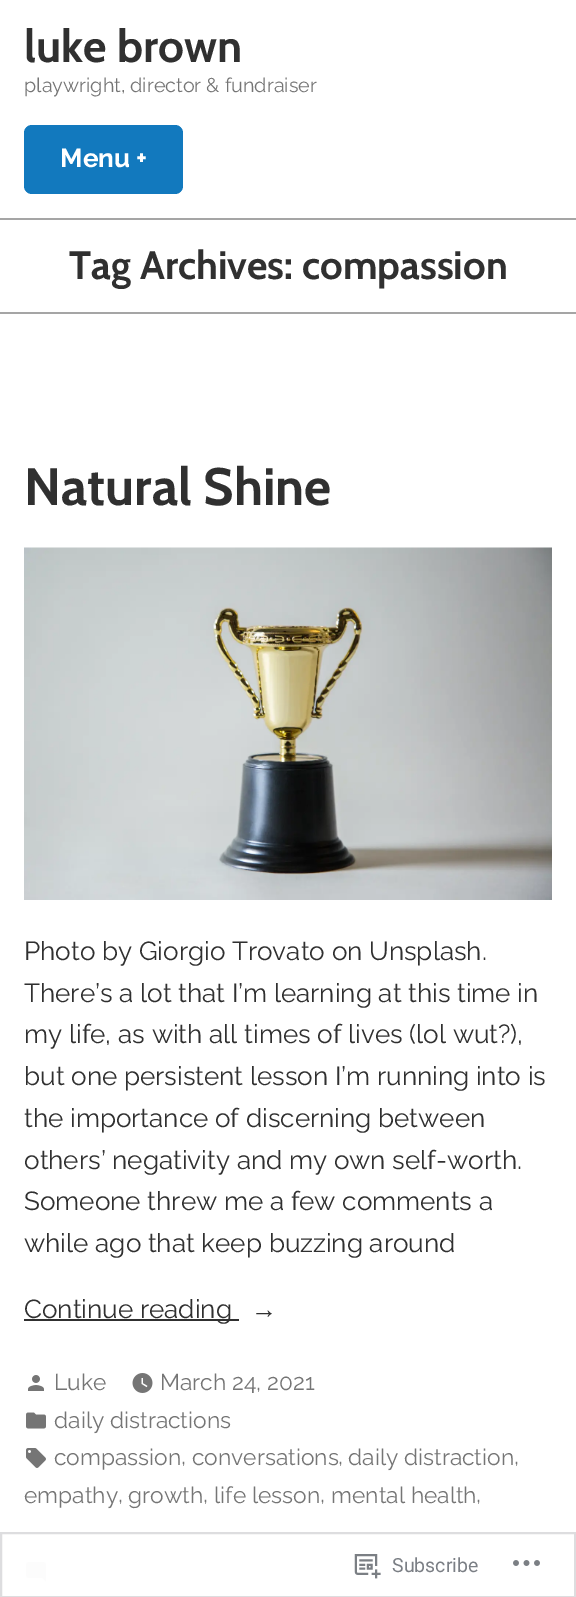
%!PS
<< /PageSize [576 1597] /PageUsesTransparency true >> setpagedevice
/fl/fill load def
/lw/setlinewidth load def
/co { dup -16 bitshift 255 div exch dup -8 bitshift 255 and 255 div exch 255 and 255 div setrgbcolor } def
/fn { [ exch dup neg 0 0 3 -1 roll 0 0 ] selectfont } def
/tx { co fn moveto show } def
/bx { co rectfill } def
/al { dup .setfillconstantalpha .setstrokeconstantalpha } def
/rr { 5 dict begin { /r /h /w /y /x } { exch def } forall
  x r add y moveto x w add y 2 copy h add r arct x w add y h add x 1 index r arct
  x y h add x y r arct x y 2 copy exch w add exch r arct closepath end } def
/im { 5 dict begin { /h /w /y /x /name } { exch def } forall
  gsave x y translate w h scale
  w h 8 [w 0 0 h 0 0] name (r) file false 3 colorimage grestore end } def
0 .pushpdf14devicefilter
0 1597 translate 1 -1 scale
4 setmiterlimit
0 0 576 1597 16#FFFFFF bx
16#1279BE co
24 125 159 69 8 rr fl
0 218 576 2 16#A5A5A5 bx
0 312 576 2 16#A5A5A5 bx
(media/1.raw) 24 547 528 353 im
24 1319 215 2 16#303030 bx
(media/2.raw) 28 1375 16 16 im
(media/3.raw) 132 1373 21 20 im
(media/4.raw) 26 1412 20 17 im
(media/5.raw) 26 1448 20 20 im
(media/6.raw) 26 1562 20 20 im
0.98 al
26 1562 20 20 16#FFFFFF bx
16#DCDCDE co
2 lw
1 1533 574 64 rectstroke
1 al
(media/7.raw) 354 1554 27 25 im
(media/8.raw) 513 1560 27 6 im
(luke brown) 24 62 /Cabin-Bold 45.5 16#303030 tx
(playwright, director & fundraiser) 24 92 /Raleway-Regular 19.75 16#757575 tx
(Menu +) 60 167 /Raleway-Bold 26.1 16#FFFFFF tx
(Tag Archives: compassion) 69 279 /Cabin-Bold 39.75 16#303030 tx
(Natural Shine) 24 505 /Cabin-Bold 52.5 16#303030 tx
(Photo by Giorgio Trovato on Unsplash.) 24 960 /Raleway-Regular 26.1 16#303030 tx
(There’s a lot that I’m learning at this time in) 24 1002 /Raleway-Regular 26.1 16#303030 tx
(my life, as with all times of lives \(lol wut?\),) 24 1043 /Raleway-Regular 26.1 16#303030 tx
(but one persistent lesson I’m running into is) 24 1085 /Raleway-Regular 26.1 16#303030 tx
(the importance of discerning between) 24 1127 /Raleway-Regular 26.1 16#303030 tx
(others’ negativity and my own self-worth.) 24 1169 /Raleway-Regular 26.1 16#303030 tx
(Someone threw me a few comments a) 24 1210 /Raleway-Regular 26.1 16#303030 tx
(while ago that keep buzzing around) 24 1252 /Raleway-Regular 26.1 16#303030 tx
(Continue reading) 24 1318 /Raleway-Regular 26.1 16#303030 tx
(→) 251 1318 /LiberationSerif-Regular 26.1 16#303030 tx
(Luke) 54 1390 /Raleway-Regular 22.75 16#757575 tx
(March 24, 2021) 160 1390 /Raleway-Regular 22.75 16#757575 tx
(daily distractions) 54 1428 /Raleway-Regular 22.75 16#757575 tx
(compassion) 54 1465 /Raleway-Regular 22.75 16#757575 tx
(,) 181 1464 /Raleway-Regular 22.75 16#757575 tx
(conversations) 192 1465 /Raleway-Regular 22.75 16#757575 tx
(,) 338 1464 /Raleway-Regular 22.75 16#757575 tx
(daily distraction) 348 1465 /Raleway-Regular 22.75 16#757575 tx
(,) 514 1464 /Raleway-Regular 22.75 16#757575 tx
(empathy) 24 1503 /Raleway-Regular 22.75 16#757575 tx
(,) 118 1502 /Raleway-Regular 22.75 16#757575 tx
(growth) 128 1503 /Raleway-Regular 22.75 16#757575 tx
(,) 203 1502 /Raleway-Regular 22.75 16#757575 tx
(life lesson) 214 1503 /Raleway-Regular 22.75 16#757575 tx
(,) 320 1502 /Raleway-Regular 22.75 16#757575 tx
(mental health) 331 1503 /Raleway-Regular 22.75 16#757575 tx
(,) 476 1502 /Raleway-Regular 22.75 16#757575 tx
(Subscribe) 392 1572 /Roboto-Regular 19.5 16#7B7F85 tx
.poppdf14devicefilter showpage
